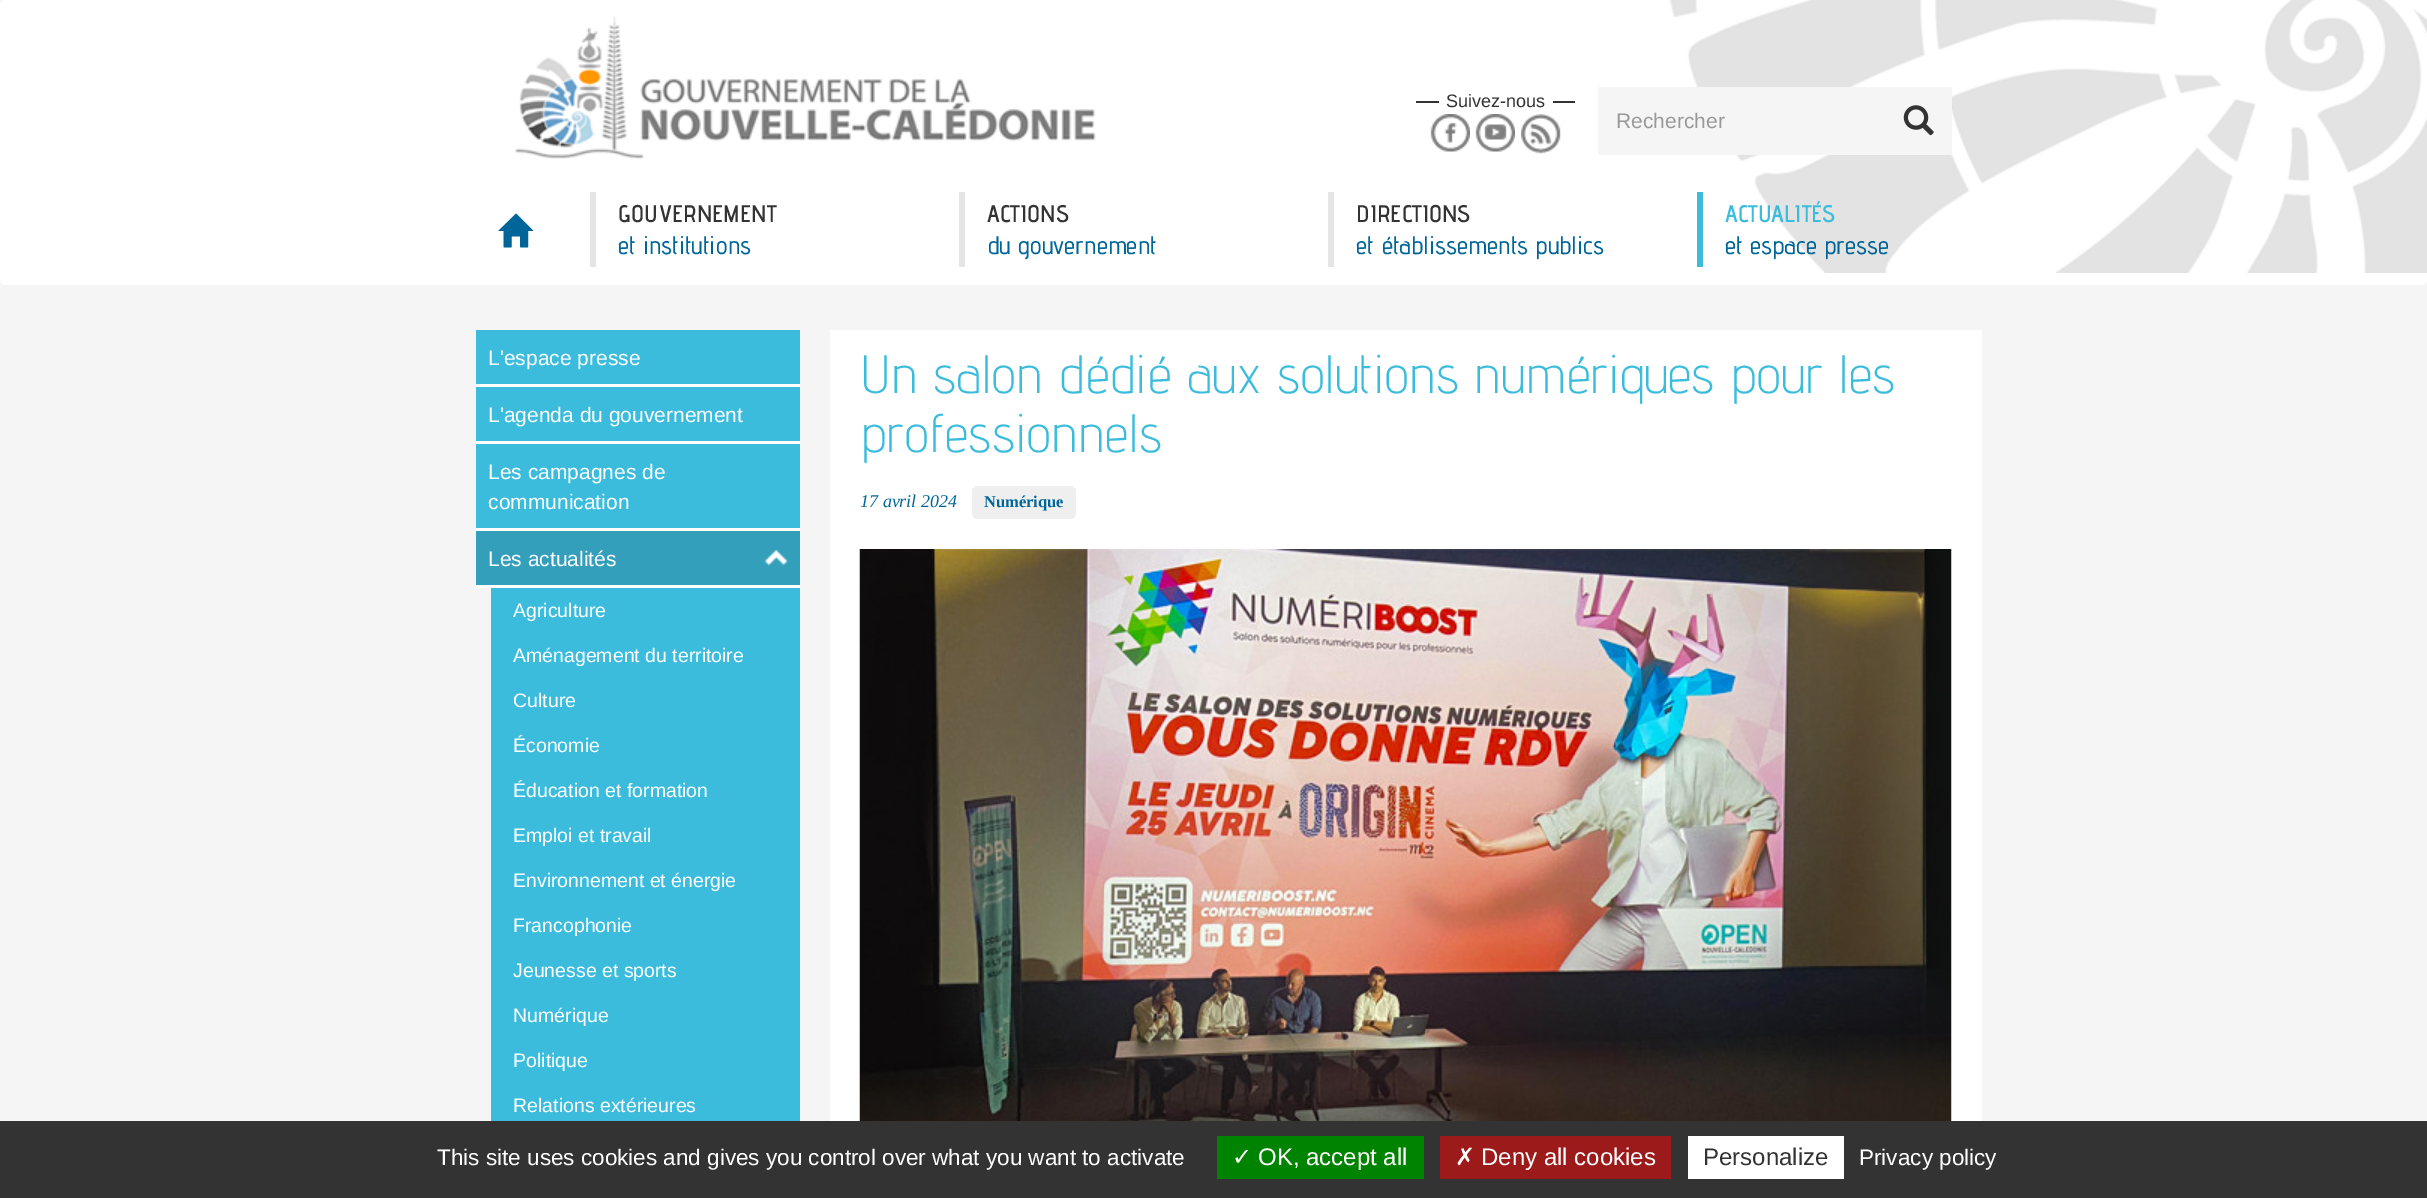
%!PS
<< /PageSize [2427 1198] >> setpagedevice
/fl/fill load def
/co { dup -16 bitshift 255 div exch dup -8 bitshift 255 and 255 div exch 255 and 255 div setrgbcolor } def
/fn { [ exch dup neg 0 0 3 -1 roll 0 0 ] selectfont } def
/tx { co fn moveto show } def
/bx { co rectfill } def
/rr { 5 dict begin { /r /h /w /y /x } { exch def } forall
  x r add y moveto x w add y 2 copy h add r arct x w add y h add x 1 index r arct
  x y h add x y r arct x y 2 copy exch w add exch r arct closepath end } def
/im { 5 dict begin { /h /w /y /x /name } { exch def } forall
  gsave x y translate w h scale
  w h 8 [w 0 0 h 0 0] name (r) file false 3 colorimage grestore end } def
0 1198 translate 1 -1 scale
4 setmiterlimit
0 0 2427 1198 16#F5F5F5 bx
16#FFFFFF co
0 0 2427 285 6 rr fl
(media/1.raw) 514 16 582 143 im
1416 101 23 2 16#333333 bx
1553 101 22 2 16#333333 bx
(media/2.raw) 1430 114 40 38 im
(media/3.raw) 1475 114 40 38 im
(media/4.raw) 1521 114 40 40 im
(media/6.raw) 1669 0 758 273 im
1598 87 354 68 16#F5F5F5 bx
(media/5.raw) 1903 105 31 31 im
(media/7.raw) 498 213 36 35 im
590 192 6 75 16#E5E5E5 bx
959 192 6 75 16#E5E5E5 bx
1328 192 6 75 16#E5E5E5 bx
1697 192 6 75 16#3CBCDD bx
476 330 324 54 16#3CBCDD bx
476 384 324 3 16#FFFFFF bx
476 387 324 54 16#3CBCDD bx
476 441 324 3 16#FFFFFF bx
476 444 324 84 16#3CBCDD bx
476 528 324 3 16#FFFFFF bx
476 531 324 54 16#339FBA bx
(media/8.raw) 764 549 24 17 im
476 585 324 3 16#FFFFFF bx
491 588 309 533 16#3CBCDD bx
830 330 1152 791 16#FFFFFF bx
16#EFEFEF co
972 486 104 33 6 rr fl
(media/9.raw) 859 549 1093 572 im
0 1121 2427 77 16#333333 bx
1217 1136 207 43 16#008300 bx
1440 1136 231 43 16#9C1A1A bx
1688 1136 156 43 16#FFFFFF bx
(Suivez-nous) 1446 107 /LiberationSans-Regular 18 16#333333 tx
(Rechercher) 1616 128 /LiberationSans-Regular 21 16#999999 tx
(GOUVERNEMENT) 618 222 /AdventPro-SemiBold 24 16#333333 tx
(et institutions) 618 254 /AdventPro-Medium 25.5 16#006699 tx
(ACTIONS) 987 222 /AdventPro-SemiBold 24 16#333333 tx
(du gouvernement) 987 254 /AdventPro-Medium 25.5 16#006699 tx
(DIRECTIONS) 1356 222 /AdventPro-SemiBold 24 16#333333 tx
(et établissements publics) 1356 254 /AdventPro-Medium 25.5 16#006699 tx
(ACTUALITÉS) 1725 222 /AdventPro-SemiBold 24 16#3CBCDD tx
(et espace presse) 1725 254 /AdventPro-Medium 25.5 16#006699 tx
(L'espace presse) 488 365 /LiberationSans-Regular 21 16#FFFFFF tx
(L'agenda du gouvernement) 488 422 /LiberationSans-Regular 21 16#FFFFFF tx
(Les campagnes de) 488 479 /LiberationSans-Regular 21 16#FFFFFF tx
(communication) 488 509 /LiberationSans-Regular 21 16#FFFFFF tx
(Les actualités) 488 566 /LiberationSans-Regular 21 16#FFFFFF tx
(Agriculture) 513 617 /LiberationSans-Regular 19.5 16#FFFFFF tx
(Aménagement du territoire) 513 662 /LiberationSans-Regular 19.5 16#FFFFFF tx
(Culture) 513 707 /LiberationSans-Regular 19.5 16#FFFFFF tx
(Économie) 513 752 /LiberationSans-Regular 19.5 16#FFFFFF tx
(Éducation et formation) 513 797 /LiberationSans-Regular 19.5 16#FFFFFF tx
(Emploi et travail) 513 842 /LiberationSans-Regular 19.5 16#FFFFFF tx
(Environnement et énergie) 513 887 /LiberationSans-Regular 19.5 16#FFFFFF tx
(Francophonie) 513 932 /LiberationSans-Regular 19.5 16#FFFFFF tx
(Jeunesse et sports) 513 977 /LiberationSans-Regular 19.5 16#FFFFFF tx
(Numérique) 513 1022 /LiberationSans-Regular 19.5 16#FFFFFF tx
(Politique) 513 1067 /LiberationSans-Regular 19.5 16#FFFFFF tx
(Relations extérieures) 513 1112 /LiberationSans-Regular 19.5 16#FFFFFF tx
(Un salon dédié aux solutions numériques pour les) 860 393 /AdventPro-Light 54 16#3CBCDD tx
(professionnels) 860 452 /AdventPro-Light 54 16#3CBCDD tx
(17 avril 2024) 860 507 /LiberationSerif-Italic 18 16#006699 tx
(Numérique) 984 507 /LiberationSerif-Bold 16.5 16#006699 tx
(This site uses cookies and gives you control over what you want to activate) 437 1165 /LiberationSans-Regular 22.5 16#FFFFFF tx
(✓) 1232 1165 /DejaVuSans-Regular 24 16#FFFFFF tx
(OK, accept all) 1258 1165 /LiberationSans-Regular 24 16#FFFFFF tx
(✗) 1455 1165 /DejaVuSans-Regular 24 16#FFFFFF tx
(Deny all cookies) 1481 1165 /LiberationSans-Regular 24 16#FFFFFF tx
(Personalize) 1703 1165 /LiberationSans-Regular 24 16#333333 tx
(Privacy policy) 1859 1165 /LiberationSans-Regular 22.5 16#FFFFFF tx
showpage
